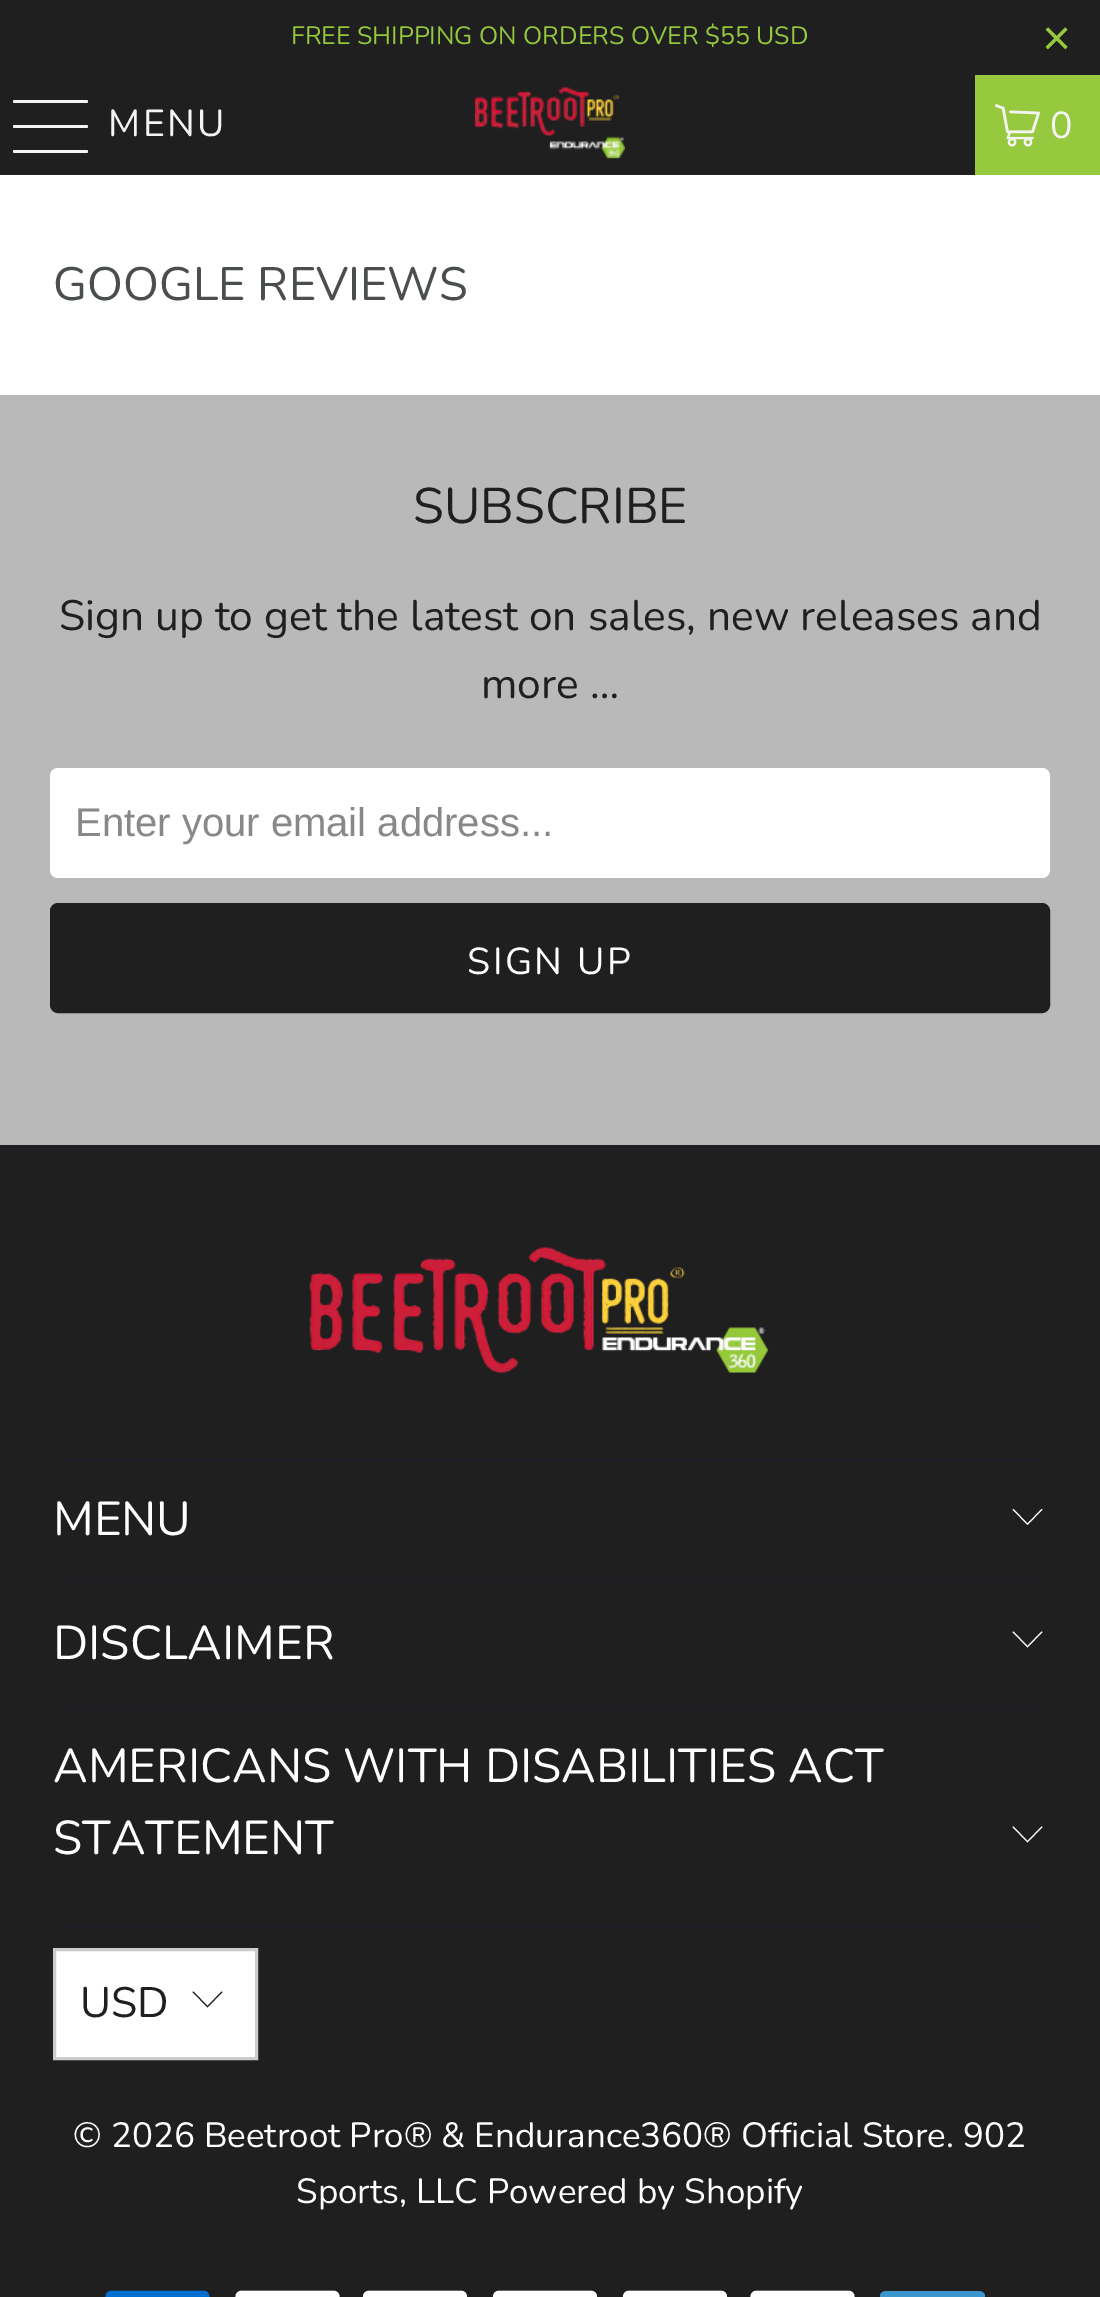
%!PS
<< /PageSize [1100 2297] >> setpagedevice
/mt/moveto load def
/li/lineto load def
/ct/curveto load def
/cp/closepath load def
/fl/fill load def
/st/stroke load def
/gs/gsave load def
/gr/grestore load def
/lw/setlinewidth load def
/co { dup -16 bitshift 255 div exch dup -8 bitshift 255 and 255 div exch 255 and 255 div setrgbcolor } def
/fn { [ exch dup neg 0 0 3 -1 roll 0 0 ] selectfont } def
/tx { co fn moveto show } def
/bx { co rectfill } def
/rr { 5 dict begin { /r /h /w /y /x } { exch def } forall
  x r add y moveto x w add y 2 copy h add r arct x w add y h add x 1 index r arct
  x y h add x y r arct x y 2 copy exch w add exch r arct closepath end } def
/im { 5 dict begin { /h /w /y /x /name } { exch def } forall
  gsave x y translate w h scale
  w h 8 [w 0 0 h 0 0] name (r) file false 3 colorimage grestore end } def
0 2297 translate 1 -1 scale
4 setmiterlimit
0 0 1100 2297 16#FFFFFF bx
0 0 1100 75 16#1F1F1F bx
0 75 975 100 16#1F1F1F bx
16#F4F4F4 co
13 100 75 3 1.5 rr fl
13 125 75 3 1.5 rr fl
13 150 75 3 1.5 rr fl
(media/1.raw) 475 87 150 72 im
975 75 125 100 16#96C93D bx
(media/2.raw) 995 104 45 43 im
0 395 1100 750 16#B9B9B9 bx
16#FFFFFF co
50 768 1000 110 8 rr fl
16#1F1F1F co
51.5 904.5 997 107 6.5 rr gs fl gr
3 lw
st
0 1148 1100 1149 16#1F1F1F bx
0 1145 1100 3 16#1B1F23 bx
(media/3.raw) 309 1247 460 126 im
53 1458 995 3 16#1B1F23 bx
16#FFFFFF co
1027.5 1525 mt 1012.5 1509.5 li 1013.5 1509 li 1027.5 1523.5 li 1041.5 1509 li 1042.5 1509.5 li cp fl
53 1580 995 3 16#1B1F23 bx
16#FFFFFF co
1027.5 1647.5 mt 1012.5 1632 li 1013.5 1631.5 li 1027.5 1646 li 1041.5 1631.5 li 1042.5 1632 li cp fl
53 1705 995 3 16#1B1F23 bx
16#FFFFFF co
1027.5 1842.5 mt 1012.5 1827 li 1013.5 1826.5 li 1027.5 1841 li 1041.5 1826.5 li 1042.5 1827 li cp fl
53 1925 995 3 16#1B1F23 bx
16#FFFFFF co
54.5 1949.5 mt 256.5 1949.5 li 256.5 2058.5 li 54.5 2058.5 li cp gs fl gr
16#CCCCCC co
st
16#1F1F1F co
207.5 2007.5 mt 192.5 1992 li 193.5 1991.5 li 207.5 2006 li 221.5 1991.5 li 222.5 1992 li cp fl
(media/4.raw) 105 2290 105 7 im
(media/5.raw) 235 2290 105 7 im
(media/6.raw) 362 2290 106 7 im
(media/6.raw) 492 2290 106 7 im
(media/6.raw) 622 2290 106 7 im
(media/5.raw) 750 2290 105 7 im
16#3D95CE co
979 2291 mt 982 2291 985 2293 985 2296 ct 985 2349 li 985 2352 982 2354 979 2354 ct 886 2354 li 883 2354 880 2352 880 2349 ct 880 2296 li 880 2293 883 2291 886 2291 ct 979 2291 li eofill
(FREE SHIPPING ON ORDERS OVER $55 USD) 291 44 /Nunito-Regular 25 16#96C93D tx
(×) 1042 55 /LiberationSans-Regular 50 16#96C93D tx
/Nunito-Regular 37.5 fn
16#F4F4F4 co
108 136 mt 2.5 0 (MENU) ashow
1050 138 mt 2.5 0 (0) ashow
(GOOGLE REVIEWS) 53 300 /Nunito-Regular 46.75 16#4B4E4F tx
(SUBSCRIBE) 413 523 /Nunito-Regular 50 16#1F1F1F tx
(Sign up to get the latest on sales, new releases and) 59 630 /Nunito-Regular 42.5 16#1F1F1F tx
(more …) 481 698 /Nunito-Regular 42.5 16#1F1F1F tx
(Enter your email address...) 75 836 /LiberationSans-Regular 40 16#888888 tx
/Nunito-Regular 37.5 fn
16#FFFFFF co
467 974 mt 2.5 0 (SIGN UP) ashow
(MENU) 53 1535 /Nunito-Regular 47.5 16#FFFFFF tx
(DISCLAIMER) 53 1659 /Nunito-Regular 47.5 16#FFFFFF tx
(AMERICANS WITH DISABILITIES ACT) 53 1782 /Nunito-Regular 47.5 16#FFFFFF tx
(STATEMENT) 53 1854 /Nunito-Regular 47.5 16#FFFFFF tx
(USD) 80 2017 /Nunito-Regular 42.5 16#1F1F1F tx
(© 2026 Beetroot Pro® & Endurance360® Official Store) 73 2147 /Nunito-Regular 35 16#FFFFFF tx
(. 902) 946 2147 /Nunito-Regular 35 16#FFFFFF tx
(Sports, LLC Powered by Shopify) 296 2203 /Nunito-Regular 35 16#FFFFFF tx
showpage
